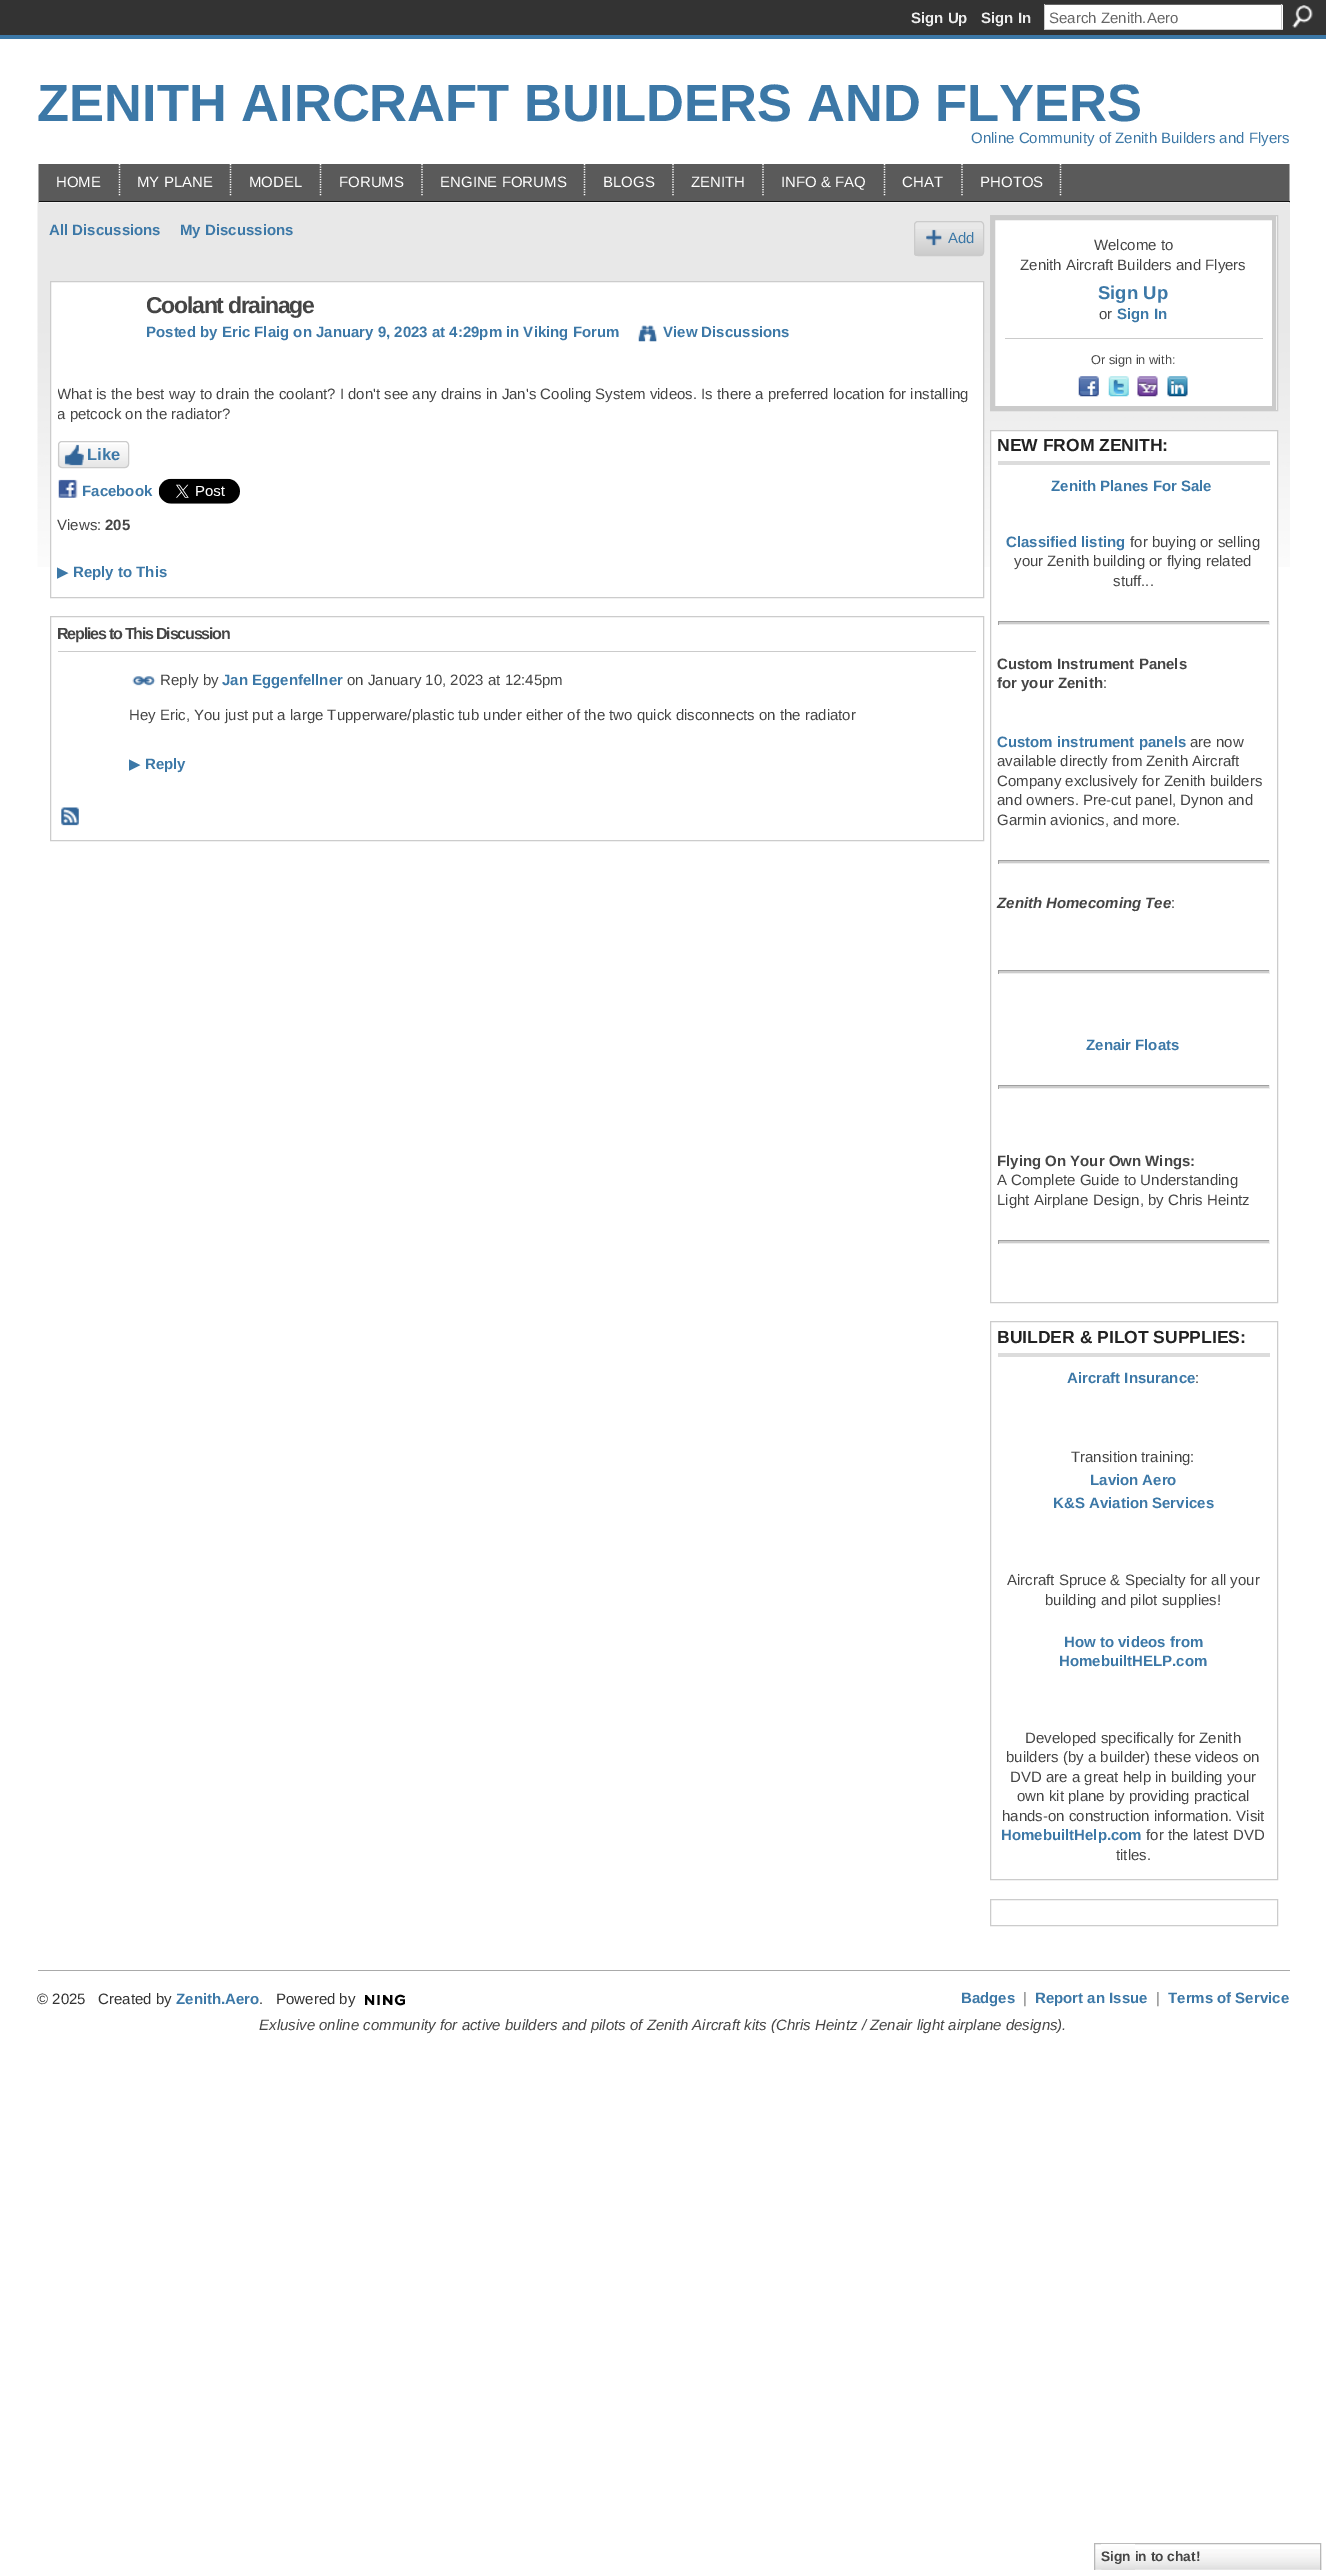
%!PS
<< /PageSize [1326 2570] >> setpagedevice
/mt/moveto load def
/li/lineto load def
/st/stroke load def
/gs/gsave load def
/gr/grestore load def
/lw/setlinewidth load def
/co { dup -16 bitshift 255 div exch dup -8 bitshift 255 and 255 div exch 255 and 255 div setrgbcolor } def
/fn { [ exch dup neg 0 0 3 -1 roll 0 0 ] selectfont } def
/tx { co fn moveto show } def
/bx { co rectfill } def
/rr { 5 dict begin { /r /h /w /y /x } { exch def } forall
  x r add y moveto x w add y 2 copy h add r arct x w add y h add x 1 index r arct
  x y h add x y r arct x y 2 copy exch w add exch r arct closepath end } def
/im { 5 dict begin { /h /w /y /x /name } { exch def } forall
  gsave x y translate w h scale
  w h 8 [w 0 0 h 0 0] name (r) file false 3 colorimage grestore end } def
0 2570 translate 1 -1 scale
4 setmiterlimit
0 0 1326 2570 16#FFFFFF bx
0 0 1326 35 16#333333 bx
1045 5 238 24 16#FFFFFF bx
1044 4 239 1 16#666666 bx
1281 4 1 26 16#CCCCCC bx
1044 29 239 1 16#CCCCCC bx
1044 4 1 26 16#CCCCCC bx
(media/1.raw) 1292 5 21 23 im
0 35 1326 4 16#3C78A7 bx
39 164 1250 37 16#5A5A5A bx
1289 164 1 39 16#AAAAAA bx
38 201 1252 1 16#111111 bx
38 164 1 39 16#AAAAAA bx
16#FFFFFF co
1.2 lw
[1.25 1.25] 0 setdash
119.5 159 mt 119.5 196 li st
230.5 159 mt 230.5 196 li st
320.5 159 mt 320.5 196 li st
422 159 mt 422 196 li st
584.5 159 mt 584.5 196 li st
673 159 mt 673 196 li st
763 159 mt 763 196 li st
884.5 159 mt 884.5 196 li st
962 159 mt 962 196 li st
1060.5 159 mt 1060.5 196 li st
(media/2.raw) 37 202 1253 365 im
(media/3.raw) 914 229 70 27 im
16#CBCBCB co
1 lw
[] 0 setdash
914.5 221.5 69 34 3.5 rr st
(media/4.raw) 926 229 16 17 im
51 282 932 285 16#FFFFFF bx
16#CCCCCC co
50.5 281.5 933 316 rectstroke
(media/5.raw) 638 325 19 17 im
(media/6.raw) 57 444 72 24 im
16#CBCBCB co
58.5 441.5 70 26 3.5 rr st
(media/7.raw) 64 444 20 22 im
(media/8.raw) 58 479 20 19 im
(media/9.raw) 158 478 82 26 im
16#CCCCCC co
50.5 616.5 933 224 rectstroke
58 651 918 1 16#CBCBCB bx
(media/10.raw) 132 676 24 10 im
(media/11.raw) 61 807 18 19 im
995 216 282 194 16#FFFFFF bx
16#CCCCCC co
990.5 215.5 287 195 rectstroke
16#CBCBCB co
4 lw
993 218 281 190 rectstroke
1005 338 258 1 16#CBCBCB bx
(media/12.raw) 1078 376 21 21 im
(media/13.raw) 1108 376 21 21 im
(media/14.raw) 1137 376 21 21 im
(media/15.raw) 1167 376 21 21 im
991 431 286 136 16#FFFFFF bx
16#CCCCCC co
1 lw
990.5 430.5 287 872 rectstroke
998 461 272 4 16#DCDCDC bx
998 622 272 2 16#CCCCCC bx
998 621 272 1 16#9F9F9F bx
1269 621 1 4 16#EEEEEE bx
998 624 272 1 16#EEEEEE bx
998 621 1 4 16#9F9F9F bx
998 861 272 2 16#CCCCCC bx
998 860 272 1 16#9F9F9F bx
1269 860 1 4 16#EEEEEE bx
998 863 272 1 16#EEEEEE bx
998 860 1 4 16#9F9F9F bx
998 971 272 2 16#CCCCCC bx
998 970 272 1 16#9F9F9F bx
1269 970 1 4 16#EEEEEE bx
998 973 272 1 16#EEEEEE bx
998 970 1 4 16#9F9F9F bx
998 1086 272 2 16#CCCCCC bx
998 1085 272 1 16#9F9F9F bx
1269 1085 1 4 16#EEEEEE bx
998 1088 272 1 16#EEEEEE bx
998 1085 1 4 16#9F9F9F bx
998 1241 272 2 16#CCCCCC bx
998 1240 272 1 16#9F9F9F bx
1269 1240 1 4 16#EEEEEE bx
998 1243 272 1 16#EEEEEE bx
998 1240 1 4 16#9F9F9F bx
16#CCCCCC co
990.5 1321.5 287 558 rectstroke
998 1353 272 4 16#DCDCDC bx
16#CCCCCC co
990.5 1899.5 287 26 rectstroke
38 1970 1252 1 16#AAAAAA bx
(media/16.raw) 365 1994 40 12 im
(media/17.raw) 1095 2549 227 21 im
16#B7B7B7 co
1094.5 2543.5 226 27 rectstroke
(media/18.raw) 1101 2543 34 27 im
(Sign Up) 911 23 /LiberationSans-Bold 15 16#EEEEEE tx
(Sign In) 981 23 /LiberationSans-Bold 15 16#EEEEEE tx
(Search Zenith.Aero) 1049 23 /LiberationSans-Regular 15 16#666666 tx
(ZENITH AIRCRAFT BUILDERS AND FLYERS) 37 121 /LiberationSans-Bold 52.5 16#3C78A7 tx
(Online Community of Zenith Builders and Flyers) 971 143 /LiberationSans-Regular 15 16#3C78A7 tx
(HOME) 56 187 /LiberationSans-Regular 15 16#FFFFFF tx
(MY PLANE) 137 187 /LiberationSans-Regular 15 16#FFFFFF tx
(MODEL) 249 187 /LiberationSans-Regular 15 16#FFFFFF tx
(FORUMS) 339 187 /LiberationSans-Regular 15 16#FFFFFF tx
(ENGINE FORUMS) 440 187 /LiberationSans-Regular 15 16#FFFFFF tx
(BLOGS) 603 187 /LiberationSans-Regular 15 16#FFFFFF tx
(ZENITH) 691 187 /LiberationSans-Regular 15 16#FFFFFF tx
(INFO & FAQ) 781 187 /LiberationSans-Regular 15 16#FFFFFF tx
(CHAT) 902 187 /LiberationSans-Regular 15 16#FFFFFF tx
(PHOTOS) 980 187 /LiberationSans-Regular 15 16#FFFFFF tx
(All Discussions) 49 235 /LiberationSans-Bold 15 16#3C78A7 tx
(My Discussions) 180 235 /LiberationSans-Bold 15 16#3C78A7 tx
(Add) 948 243 /LiberationSans-Regular 15 16#3C78A7 tx
/LiberationSans-Bold 23 fn
16#454545 co
146 313 mt -1.25 0 (Coolant drainage) ashow
(Posted by Eric Flaig on January 9, 2023 at 4:29pm in Viking Forum) 146 337 /LiberationSans-Bold 15 16#3C78A7 tx
(View Discussions) 663 337 /LiberationSans-Bold 15 16#3C78A7 tx
gs
58 380 918 51 rectclip
(What is the best way to drain the coolant? I don't see any drains in Jan's Cooling System videos. Is there a preferred location for installing) 57 399 /LiberationSans-Regular 15 16#454545 tx
(a petcock on the radiator?) 57 419 /LiberationSans-Regular 15 16#454545 tx
gr
(Like) 87 460 /LiberationSans-Bold 16.5 16#3C78A7 tx
(Facebook) 82 496 /LiberationSans-Bold 15 16#3C78A7 tx
(Views:) 57 530 /LiberationSans-Regular 15 16#454545 tx
(205) 105 530 /LiberationSans-Bold 15 16#454545 tx
(▶) 57 577 /DejaVuSans-Regular 15 16#3C78A7 tx
(Reply to This) 73 577 /LiberationSans-Bold 15 16#3C78A7 tx
/LiberationSans-Bold 16.1 fn
16#454545 co
57 639 mt -1.25 0 (Replies to This Discussion) ashow
(Reply by) 160 685 /LiberationSans-Regular 15 16#454545 tx
(Jan Eggenfellner) 222 685 /LiberationSans-Bold 15 16#3C78A7 tx
(on January 10, 2023 at 12:45pm) 347 685 /LiberationSans-Regular 15 16#454545 tx
(Hey Eric, You just put a large Tupperware/plastic tub under either of the two quick disconnects on the radiator) 129 720 /LiberationSans-Regular 15 16#454545 tx
(▶) 129 769 /DejaVuSans-Regular 15 16#3C78A7 tx
(Reply) 145 769 /LiberationSans-Bold 15 16#3C78A7 tx
(Welcome to) 1094 250 /LiberationSans-Regular 15 16#454545 tx
(Zenith Aircraft Builders and Flyers) 1020 270 /LiberationSans-Regular 15 16#454545 tx
(Sign Up) 1098 299 /LiberationSans-Bold 18.5 16#3C78A7 tx
(or) 1099 319 /LiberationSans-Regular 15 16#454545 tx
(Sign In) 1117 319 /LiberationSans-Bold 15 16#3C78A7 tx
(Or sign in with:) 1091 364 /LiberationSans-Regular 12.75 16#454545 tx
(NEW FROM ZENITH:) 997 451 /LiberationSans-Bold 17.5 16#222222 tx
(Zenith Planes For Sale) 1051 491 /LiberationSans-Bold 15 16#3C78A7 tx
(Classified listing) 1006 547 /LiberationSans-Bold 15 16#3C78A7 tx
(for buying or selling) 1130 547 /LiberationSans-Regular 15 16#454545 tx
(your Zenith building or flying related) 1014 566 /LiberationSans-Regular 15 16#454545 tx
(stuff...) 1113 586 /LiberationSans-Regular 15 16#454545 tx
(Custom Instrument Panels) 997 669 /LiberationSans-Bold 15 16#454545 tx
(for your Zenith) 997 688 /LiberationSans-Bold 15 16#454545 tx
(:) 1103 688 /LiberationSans-Regular 15 16#454545 tx
(Custom instrument panels) 997 747 /LiberationSans-Bold 15 16#3C78A7 tx
(are now) 1190 747 /LiberationSans-Regular 15 16#454545 tx
(available directly from Zenith Aircraft) 997 766 /LiberationSans-Regular 15 16#454545 tx
(Company exclusively for Zenith builders) 997 786 /LiberationSans-Regular 15 16#454545 tx
(and owners. Pre-cut panel, Dynon and) 997 805 /LiberationSans-Regular 15 16#454545 tx
(Garmin avionics, and more.) 997 825 /LiberationSans-Regular 15 16#454545 tx
(Zenith Homecoming Tee) 997 908 /LiberationSans-BoldItalic 15 16#454545 tx
(:) 1171 908 /LiberationSans-Regular 15 16#454545 tx
(Zenair Floats) 1086 1050 /LiberationSans-Bold 15 16#3C78A7 tx
(Flying On Your Own Wings:) 997 1166 /LiberationSans-Bold 15 16#454545 tx
(A Complete Guide to Understanding) 997 1185 /LiberationSans-Regular 15 16#454545 tx
(Light Airplane Design, by Chris Heintz) 997 1205 /LiberationSans-Regular 15 16#454545 tx
(BUILDER & PILOT SUPPLIES:) 997 1343 /LiberationSans-Bold 17.5 16#222222 tx
(Aircraft Insurance) 1067 1383 /LiberationSans-Bold 15 16#3C78A7 tx
(:) 1195 1383 /LiberationSans-Regular 15 16#454545 tx
(Transition training:) 1071 1462 /LiberationSans-Regular 15 16#454545 tx
(Lavion Aero) 1090 1485 /LiberationSans-Bold 15 16#3C78A7 tx
(K&S Aviation Services) 1053 1508 /LiberationSans-Bold 15 16#3C78A7 tx
(Aircraft Spruce & Specialty for all your) 1007 1585 /LiberationSans-Regular 15 16#454545 tx
(building and pilot supplies!) 1045 1605 /LiberationSans-Regular 15 16#454545 tx
(How to videos from) 1064 1647 /LiberationSans-Bold 15 16#3C78A7 tx
(HomebuiltHELP.com) 1059 1666 /LiberationSans-Bold 15 16#3C78A7 tx
(Developed specifically for Zenith) 1025 1743 /LiberationSans-Regular 15 16#454545 tx
(builders \(by a builder\) these videos on) 1006 1762 /LiberationSans-Regular 15 16#454545 tx
(DVD are a great help in building your) 1010 1782 /LiberationSans-Regular 15 16#454545 tx
(own kit plane by providing practical) 1017 1801 /LiberationSans-Regular 15 16#454545 tx
(hands-on construction information. Visit) 1002 1821 /LiberationSans-Regular 15 16#454545 tx
(HomebuiltHelp.com) 1001 1840 /LiberationSans-Bold 15 16#3C78A7 tx
(for the latest DVD) 1146 1840 /LiberationSans-Regular 15 16#454545 tx
(titles.) 1116 1860 /LiberationSans-Regular 15 16#454545 tx
(© 2025) 37 2004 /LiberationSans-Regular 15 16#333333 tx
(Created by) 98 2004 /LiberationSans-Regular 15 16#333333 tx
(Zenith.Aero) 176 2004 /LiberationSans-Bold 15 16#3C78A7 tx
(.) 259 2004 /LiberationSans-Regular 15 16#333333 tx
(Powered by) 276 2004 /LiberationSans-Regular 15 16#333333 tx
(Badges) 961 2003 /LiberationSans-Bold 15 16#3C78A7 tx
(|) 1023 2003 /LiberationSans-Regular 15 16#7F7F7F tx
(Report an Issue) 1035 2003 /LiberationSans-Bold 15 16#3C78A7 tx
(|) 1156 2003 /LiberationSans-Regular 15 16#7F7F7F tx
(Terms of Service) 1168 2003 /LiberationSans-Bold 15 16#3C78A7 tx
(Exlusive online community for active builders and pilots of Zenith Aircraft kits \(Chris Heintz / Zenair light airplane designs\).) 259 2030 /LiberationSans-Italic 15 16#454545 tx
(Sign in to chat!) 1101 2561 /LiberationSans-Bold 13.75 16#454545 tx
showpage
